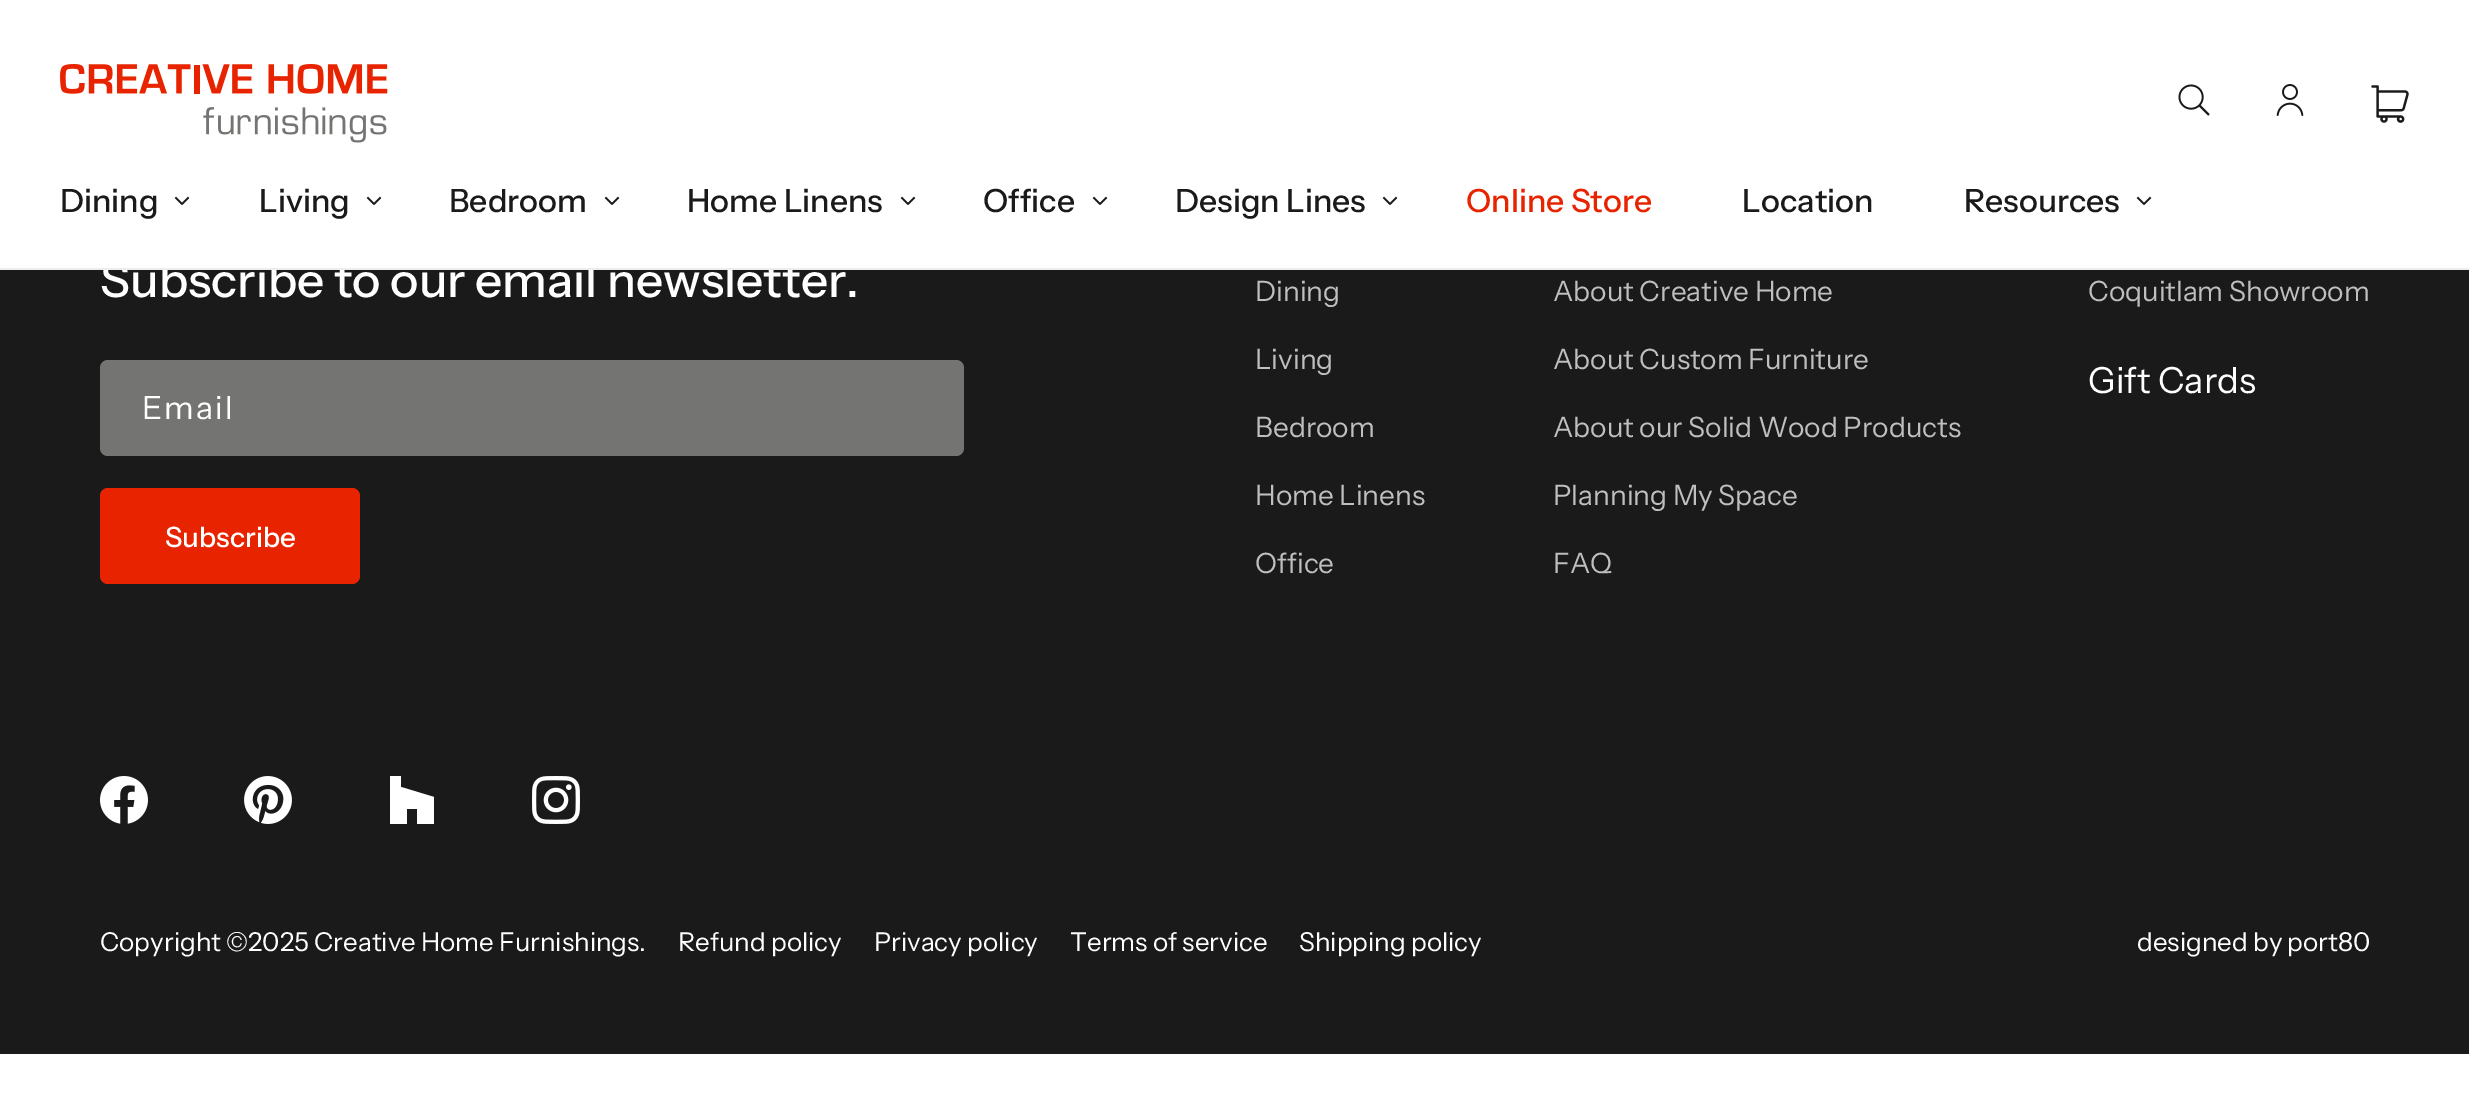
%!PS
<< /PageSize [2469 1101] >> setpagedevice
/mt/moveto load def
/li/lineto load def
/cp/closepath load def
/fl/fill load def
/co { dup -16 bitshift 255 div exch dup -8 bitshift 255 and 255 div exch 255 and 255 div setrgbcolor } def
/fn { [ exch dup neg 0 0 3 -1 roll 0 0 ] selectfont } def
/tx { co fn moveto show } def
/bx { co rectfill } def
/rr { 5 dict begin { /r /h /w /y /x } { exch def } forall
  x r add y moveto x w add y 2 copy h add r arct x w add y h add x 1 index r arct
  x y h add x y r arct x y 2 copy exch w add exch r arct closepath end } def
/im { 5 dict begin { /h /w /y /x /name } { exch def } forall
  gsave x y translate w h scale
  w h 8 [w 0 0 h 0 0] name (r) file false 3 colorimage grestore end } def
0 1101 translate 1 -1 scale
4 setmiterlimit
0 0 2469 1101 16#FFFFFF bx
(media/1.raw) 60 64 328 79 im
(media/2.raw) 2178 84 32 32 im
(media/3.raw) 2276 84 28 32 im
(media/4.raw) 2371 85 38 38 im
(media/5.raw) 174 196 16 9 im
(media/5.raw) 366 196 16 9 im
(media/5.raw) 604 196 16 9 im
(media/5.raw) 900 196 16 9 im
(media/5.raw) 1092 196 16 9 im
(media/5.raw) 1382 196 16 9 im
(media/5.raw) 2136 196 16 9 im
0 270 2469 784 16#1A1A1A bx
16#747472 co
100 360 864 96 8 rr fl
16#E72300 co
100 488 260 96 8 rr fl
(media/6.raw) 100 776 48 48 im
(media/7.raw) 244 776 48 48 im
16#FFFFFF co
417 824 mt 434 824 li 434 797 li 401 787 li 401 776 li 390 776 li 390 824 li 407 824 li 407 809 li 417 809 li cp eofill
(media/8.raw) 532 776 48 48 im
(Dining) 60 212 /InstrumentSans-Medium 32 16#1A1A1A tx
(Living) 259 212 /InstrumentSans-Medium 32 16#1A1A1A tx
(Bedroom) 449 212 /InstrumentSans-Medium 32 16#1A1A1A tx
(Home Linens) 687 212 /InstrumentSans-Medium 32 16#1A1A1A tx
(Office) 983 212 /InstrumentSans-Medium 32 16#1A1A1A tx
(Design Lines) 1175 212 /InstrumentSans-Medium 32 16#1A1A1A tx
(Online Store) 1466 212 /InstrumentSans-Medium 32 16#E72300 tx
(Location) 1742 212 /InstrumentSans-Medium 32 16#1A1A1A tx
(Resources) 1964 212 /InstrumentSans-Medium 32 16#1A1A1A tx
(Subscribe to our email newsletter.) 100 297 /InstrumentSans-Medium 48 16#FFFFFF tx
0 268 2469 2 16#EDEDED bx
/InstrumentSans-Regular 32 fn
16#FFFFFF co
142 419 mt 2 0 (Email) ashow
(Subscribe) 165 547 /InstrumentSans-Medium 28 16#FFFFFF tx
(Dining) 1255 301 /InstrumentSans-Regular 28 16#BFBFBF tx
(Living) 1255 369 /InstrumentSans-Regular 28 16#BFBFBF tx
(Bedroom) 1255 437 /InstrumentSans-Regular 28 16#BFBFBF tx
(Home Linens) 1255 505 /InstrumentSans-Regular 28 16#BFBFBF tx
(Office) 1255 573 /InstrumentSans-Regular 28 16#BFBFBF tx
(About Creative Home) 1553 301 /InstrumentSans-Regular 28 16#BFBFBF tx
(About Custom Furniture) 1553 369 /InstrumentSans-Regular 28 16#BFBFBF tx
(About our Solid Wood Products) 1553 437 /InstrumentSans-Regular 28 16#BFBFBF tx
(Planning My Space) 1553 505 /InstrumentSans-Regular 28 16#BFBFBF tx
(FAQ) 1553 573 /InstrumentSans-Regular 28 16#BFBFBF tx
(Coquitlam Showroom) 2088 301 /InstrumentSans-Regular 28 16#BFBFBF tx
(Gift Cards) 2088 393 /InstrumentSans-Regular 36 16#FFFFFF tx
(Copyright ©2025 Creative Home Furnishings.) 100 951 /InstrumentSans-Regular 26 16#FFFFFF tx
(Refund policy) 678 951 /InstrumentSans-Regular 26 16#FFFFFF tx
(Privacy policy) 874 951 /InstrumentSans-Regular 26 16#FFFFFF tx
(Terms of service) 1070 951 /InstrumentSans-Regular 26 16#FFFFFF tx
(Shipping policy) 1299 951 /InstrumentSans-Regular 26 16#FFFFFF tx
(designed by port80) 2137 951 /InstrumentSans-Regular 26 16#FFFFFF tx
showpage
